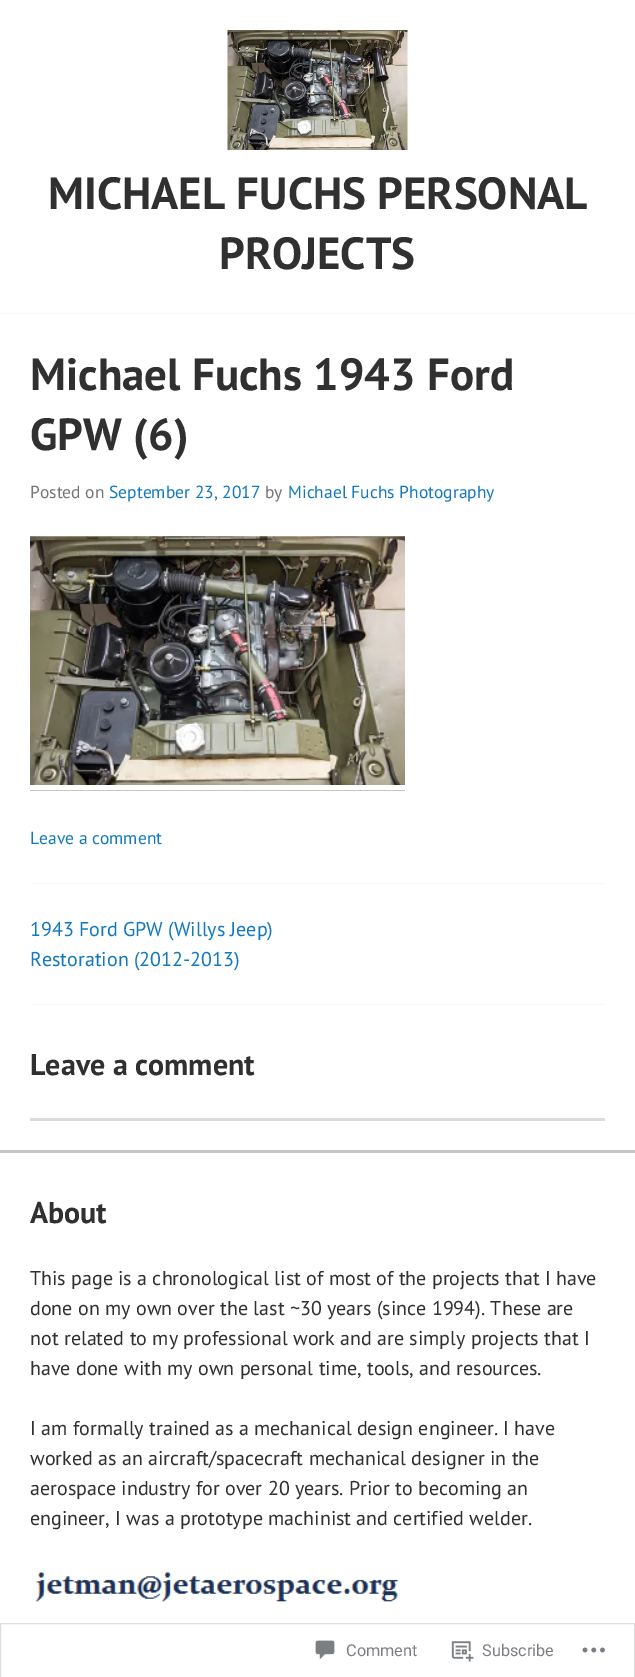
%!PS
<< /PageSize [635 1677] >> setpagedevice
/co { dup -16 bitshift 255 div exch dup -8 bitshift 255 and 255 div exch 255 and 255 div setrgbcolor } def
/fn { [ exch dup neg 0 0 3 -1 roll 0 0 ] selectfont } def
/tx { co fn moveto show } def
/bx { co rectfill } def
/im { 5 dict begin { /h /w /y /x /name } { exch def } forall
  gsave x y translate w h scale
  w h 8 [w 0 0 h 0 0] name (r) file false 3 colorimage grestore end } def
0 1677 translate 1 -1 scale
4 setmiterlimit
0 0 635 1677 16#FFFFFF bx
0 313 635 1 16#F8F8F8 bx
(media/1.raw) 227 30 181 120 im
(media/2.raw) 30 536 375 249 im
30 790 375 1 16#C5C5C5 bx
30 883 575 1 16#F8F8F8 bx
30 1004 575 1 16#F8F8F8 bx
30 1118 575 3 16#DCDCDE bx
0 1150 635 3 16#C5C5C5 bx
(media/3.raw) 36 1572 363 30 im
16#DDDDDF co
.5 1623.5 634 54 rectstroke
(media/4.raw) 315 1640 20 20 im
(media/5.raw) 451 1641 23 21 im
(media/6.raw) 582 1647 23 6 im
(MICHAEL FUCHS PERSONAL) 48 209 /PTSans-Bold 45 16#303030 tx
(PROJECTS) 219 269 /PTSans-Bold 45 16#303030 tx
(Michael Fuchs 1943 Ford) 30 390 /PTSans-Bold 45 16#303030 tx
(GPW \(6\)) 30 450 /PTSans-Bold 45 16#303030 tx
(Posted on) 30 498 /PTSans-Regular 17.5 16#757575 tx
(September 23, 2017) 109 498 /PTSans-Regular 17.5 16#1279BE tx
(by) 265 498 /PTSans-Regular 17.5 16#757575 tx
(Michael Fuchs Photography) 288 498 /PTSans-Regular 17.5 16#1279BE tx
(Leave a comment) 30 844 /PTSans-Regular 17.5 16#1279BE tx
(1943 Ford GPW \(Willys Jeep\)) 30 936 /PTSans-Regular 20 16#1279BE tx
(Restoration \(2012-2013\)) 30 966 /PTSans-Regular 20 16#1279BE tx
(Leave a comment) 30 1075 /PTSans-Bold 30 16#303030 tx
(About) 30 1223 /PTSans-Bold 30 16#303030 tx
(This page is a chronological list of most of the projects that I have) 30 1285 /PTSans-Regular 20 16#303030 tx
(done on my own over the last ~30 years \(since 1994\). These are) 30 1315 /PTSans-Regular 20 16#303030 tx
(not related to my professional work and are simply projects that I) 30 1345 /PTSans-Regular 20 16#303030 tx
(have done with my own personal time, tools, and resources.) 30 1375 /PTSans-Regular 20 16#303030 tx
(I am formally trained as a mechanical design engineer. I have) 30 1435 /PTSans-Regular 20 16#303030 tx
(worked as an aircraft/spacecraft mechanical designer in the) 30 1465 /PTSans-Regular 20 16#303030 tx
(aerospace industry for over 20 years. Prior to becoming an) 30 1495 /PTSans-Regular 20 16#303030 tx
(engineer, I was a prototype machinist and certified welder.) 30 1525 /PTSans-Regular 20 16#303030 tx
(Comment) 346 1656 /Roboto-Regular 16.25 16#7B7E84 tx
(Subscribe) 482 1656 /Roboto-Regular 16.25 16#7B7E84 tx
showpage
